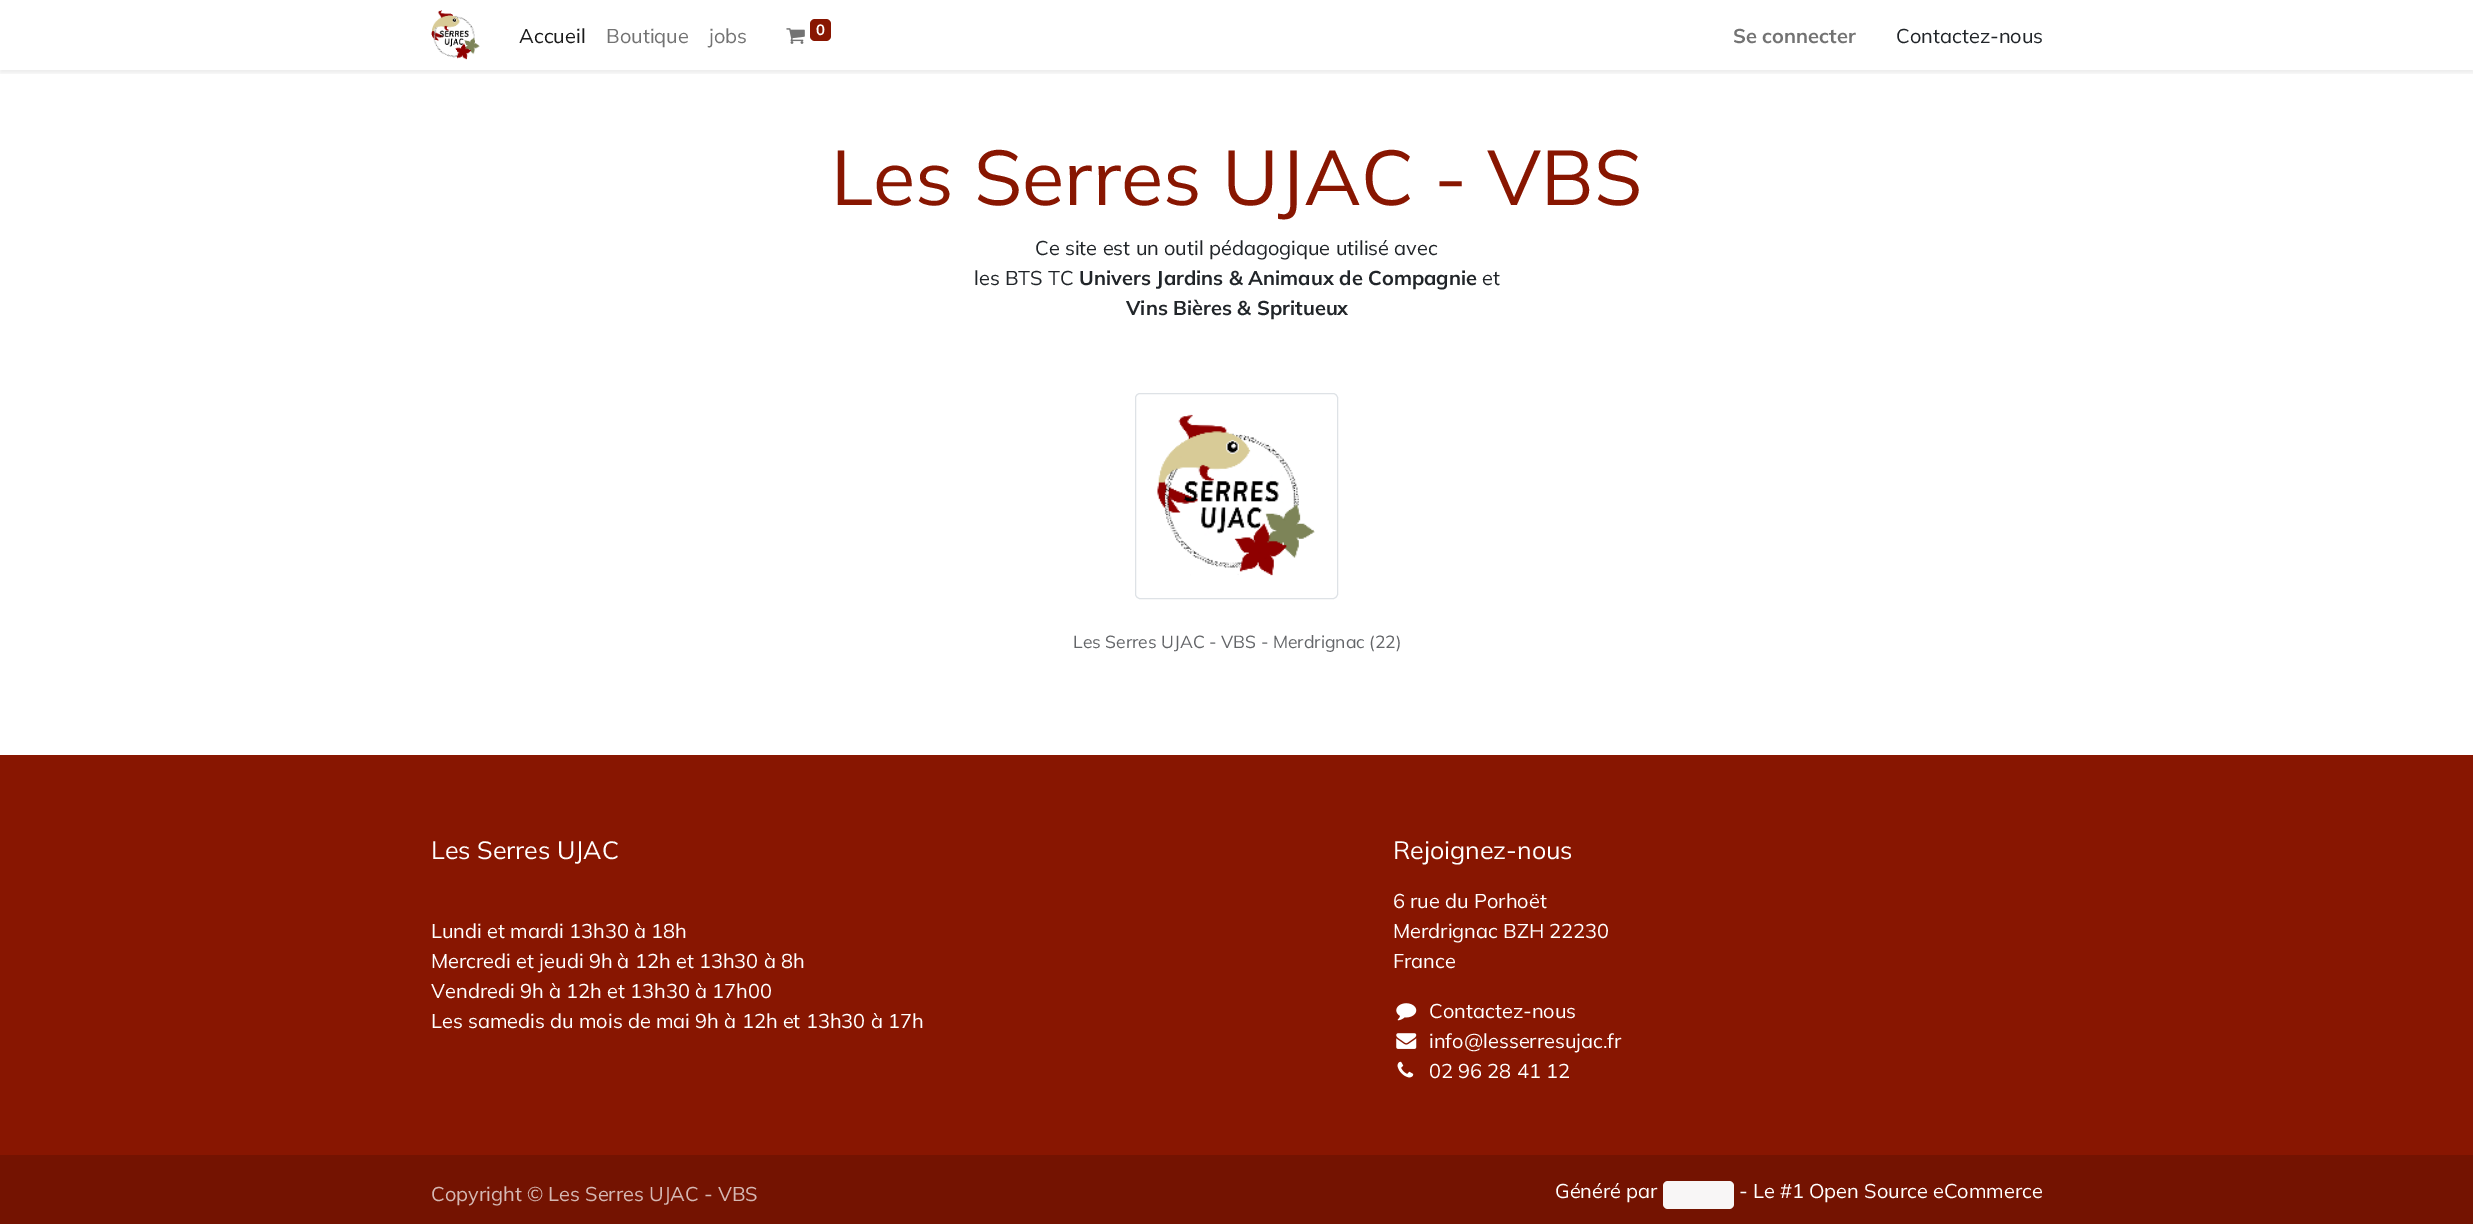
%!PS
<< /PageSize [2473 1224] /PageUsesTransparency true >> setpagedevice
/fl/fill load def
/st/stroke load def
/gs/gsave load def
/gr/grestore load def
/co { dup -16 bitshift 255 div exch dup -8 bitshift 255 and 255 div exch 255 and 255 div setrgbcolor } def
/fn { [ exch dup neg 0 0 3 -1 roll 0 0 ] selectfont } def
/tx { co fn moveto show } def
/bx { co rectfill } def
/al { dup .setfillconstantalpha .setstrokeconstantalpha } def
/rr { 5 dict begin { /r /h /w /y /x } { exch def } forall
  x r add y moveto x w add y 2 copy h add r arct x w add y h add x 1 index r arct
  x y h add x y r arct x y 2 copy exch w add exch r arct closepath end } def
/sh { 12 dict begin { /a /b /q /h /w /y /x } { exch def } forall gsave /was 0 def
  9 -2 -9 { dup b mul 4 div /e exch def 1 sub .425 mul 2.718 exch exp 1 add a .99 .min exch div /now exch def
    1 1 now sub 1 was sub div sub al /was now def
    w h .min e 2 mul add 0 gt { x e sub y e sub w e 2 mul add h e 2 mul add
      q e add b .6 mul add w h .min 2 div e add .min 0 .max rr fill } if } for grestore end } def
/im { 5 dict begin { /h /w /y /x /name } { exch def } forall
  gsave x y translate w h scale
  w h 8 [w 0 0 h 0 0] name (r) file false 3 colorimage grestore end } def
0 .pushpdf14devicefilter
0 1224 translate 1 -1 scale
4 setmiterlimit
0 0 2473 1224 16#FFFFFF bx
gs
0 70 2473 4 rectclip
16#000000 co
0 3 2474 70 0 2.5 .07 sh
gr
(media/1.raw) 431 10 49 50 im
(media/2.raw) 786 28 19 16 im
16#881601 co
810 19 21 22 5 rr fl
16#DEE2E6 co
1135.5 393.5 202 205 4.5 rr st
(media/3.raw) 1157 414 158 162 im
0 755 2473 400 16#881601 bx
(media/4.raw) 1396 1003 21 18 im
(media/5.raw) 1396 1033 21 16 im
(media/6.raw) 1397 1061 17 17 im
0 1155 2473 69 16#741301 bx
16#F8F6F6 co
1663 1181 71 28 5 rr fl
(Accueil) 519 43 /Mulish-Regular 20 16#1A1A1A tx
(Boutique) 606 43 /Mulish-Regular 20 16#737373 tx
(jobs) 709 43 /Mulish-Regular 20 16#737373 tx
(0) 816 35 /Mulish-Bold 15 16#FFFFFF tx
(Se connecter) 1733 43 /Mulish-Bold 20 16#737373 tx
(Contactez-nous) 1896 43 /Mulish-Regular 20 16#212529 tx
(Les Serres UJAC - VBS) 831 205 /Mulish-Regular 77.5 16#881601 tx
(Ce site est un outil pédagogique utilisé avec) 1035 255 /Mulish-Regular 20 16#212529 tx
(les BTS TC) 974 285 /Mulish-Regular 20 16#212529 tx
(Univers Jardins & Animaux de Compagnie) 1079 285 /Mulish-Bold 20 16#212529 tx
(et) 1482 285 /Mulish-Regular 20 16#212529 tx
(Vins Bières & Spritueux) 1126 315 /Mulish-Bold 20 16#212529 tx
(Les Serres UJAC - VBS - Merdrignac \(22\)) 1073 648 /Mulish-Regular 17.5 16#646669 tx
(Les Serres UJAC) 431 859 /Mulish-Regular 25 16#FFFFFF tx
(Lundi et mardi 13h30 à 18h) 431 938 /Mulish-Regular 20 16#FFFFFF tx
(Mercredi et jeudi 9h à 12h et 13h30 à 8h) 431 968 /Mulish-Regular 20 16#FFFFFF tx
(Vendredi 9h à 12h et 13h30 à 17h00) 431 998 /Mulish-Regular 20 16#FFFFFF tx
(Les samedis du mois de mai 9h à 12h et 13h30 à 17h) 431 1028 /Mulish-Regular 20 16#FFFFFF tx
(Rejoignez-nous) 1393 859 /Mulish-Regular 25 16#FFFFFF tx
(6 rue du Porhoët) 1393 908 /Mulish-Regular 20 16#FFFFFF tx
(Merdrignac BZH 22230) 1393 938 /Mulish-Regular 20 16#FFFFFF tx
(France) 1393 968 /Mulish-Regular 20 16#FFFFFF tx
(Contactez-nous) 1429 1018 /Mulish-Regular 20 16#FFFFFF tx
(info@lesserresujac.fr) 1429 1048 /Mulish-Regular 20 16#FFFFFF tx
(02 96 28 41 12) 1429 1078 /Mulish-Regular 20 16#FFFFFF tx
(Copyright © Les Serres UJAC - VBS) 431 1201 /Mulish-Regular 20 16#D5B8B3 tx
(Généré par) 1555 1198 /Mulish-Regular 20 16#FFFFFF tx
(- Le #1 Open Source eCommerce) 1739 1198 /Mulish-Regular 20 16#FFFFFF tx
.poppdf14devicefilter showpage
